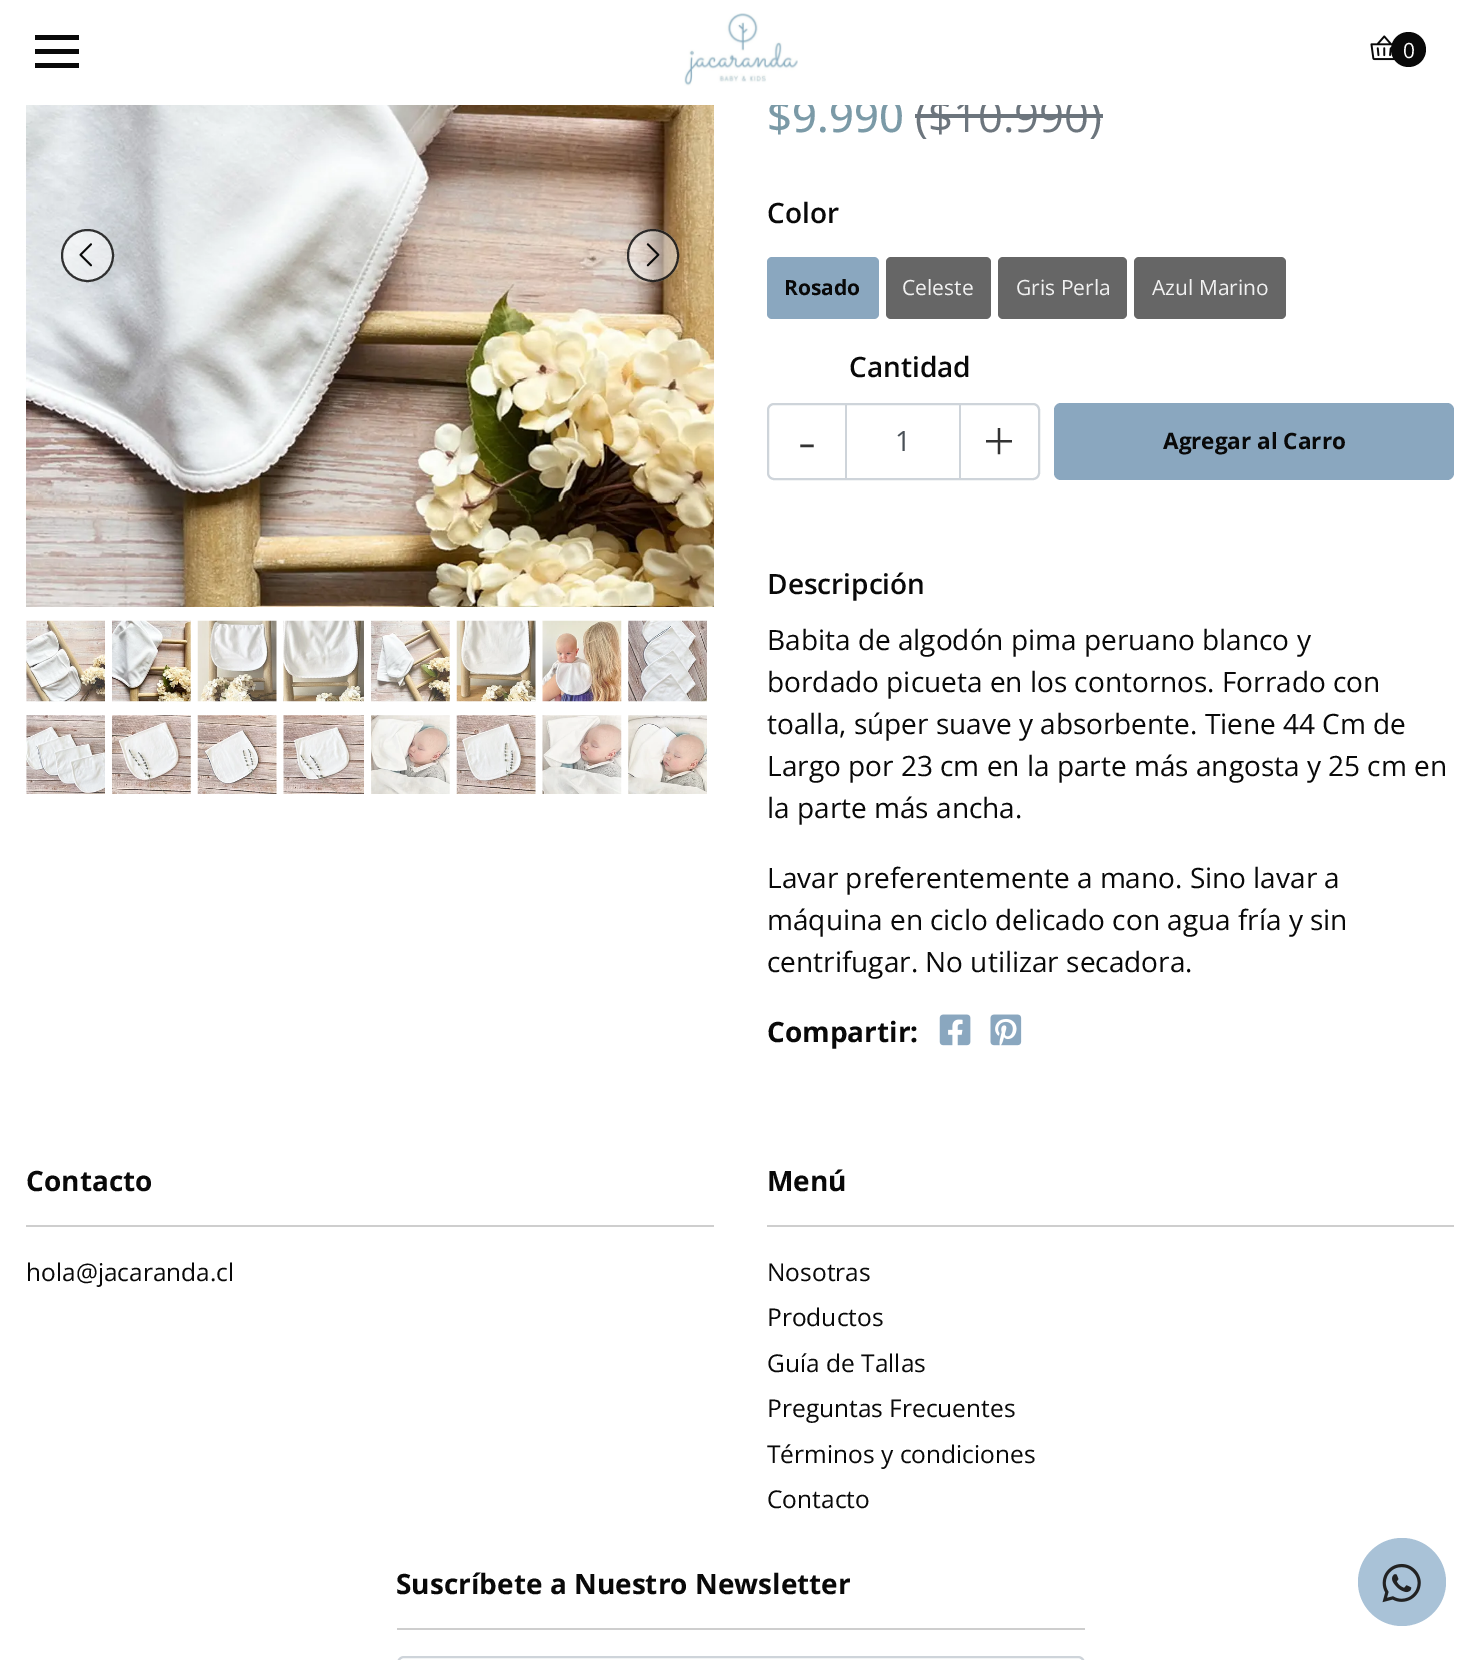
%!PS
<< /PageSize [1480 1660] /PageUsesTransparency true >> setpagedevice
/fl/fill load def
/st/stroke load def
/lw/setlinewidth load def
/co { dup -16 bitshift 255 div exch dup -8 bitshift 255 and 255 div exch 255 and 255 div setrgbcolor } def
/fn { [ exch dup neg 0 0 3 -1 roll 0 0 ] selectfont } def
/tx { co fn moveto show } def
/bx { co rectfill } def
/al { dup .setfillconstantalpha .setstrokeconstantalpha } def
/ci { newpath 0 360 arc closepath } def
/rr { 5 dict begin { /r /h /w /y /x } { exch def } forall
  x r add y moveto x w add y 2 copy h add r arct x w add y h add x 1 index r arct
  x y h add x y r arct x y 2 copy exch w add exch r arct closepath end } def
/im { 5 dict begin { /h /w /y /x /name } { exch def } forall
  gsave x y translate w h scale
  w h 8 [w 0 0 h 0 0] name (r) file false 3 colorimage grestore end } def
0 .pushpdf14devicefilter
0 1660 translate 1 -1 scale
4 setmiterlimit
0 0 1480 1660 16#FFFFFF bx
35 35 44 5 16#090909 bx
35 49 44 5 16#090909 bx
35 63 44 5 16#090909 bx
(media/1.raw) 684 13 114 73 im
(media/2.raw) 1370 35 25 26 im
1408.5 49.5 17.5 ci fl
(media/3.raw) 26 105 688 502 im
0.5 al
16#FFFFFF co
87.5 255.5 26.5 ci fl
0.8 al
16#000000 co
2 lw
87.5 255.5 25.5 ci st
1 al
(media/4.raw) 79 243 13 24 im
0.5 al
16#FFFFFF co
627 229 52 53 26 rr fl
0.8 al
16#000000 co
628 230 50 51 25 rr st
1 al
(media/5.raw) 646 243 14 24 im
(media/6.raw) 26 620 79 82 im
(media/7.raw) 112 620 79 82 im
(media/8.raw) 197 620 80 82 im
(media/9.raw) 283 620 81 82 im
(media/10.raw) 371 620 79 82 im
(media/11.raw) 456 620 80 82 im
(media/12.raw) 542 620 80 82 im
(media/13.raw) 628 620 79 82 im
(media/14.raw) 26 715 79 79 im
(media/15.raw) 112 715 79 79 im
(media/16.raw) 197 715 80 79 im
(media/17.raw) 283 715 81 79 im
(media/18.raw) 371 715 79 79 im
(media/19.raw) 456 715 80 79 im
(media/20.raw) 542 715 80 79 im
(media/21.raw) 628 715 79 79 im
915 114 188 4 16#6C757D bx
16#8AA7BF co
767 257 112 62 5 rr fl
16#666666 co
886 257 105 62 5 rr fl
998 257 129 62 5 rr fl
1134 257 152 62 5 rr fl
16#CED4DA co
768 404 271 75 6 rr st
845 404 2 74 16#CED4DA bx
959 404 2 74 16#CED4DA bx
16#8AA7BF co
1054 403 400 77 7 rr fl
(media/22.raw) 939 1014 32 32 im
(media/23.raw) 990 1014 32 32 im
26 1225 688 2 16#CECECE bx
767 1225 687 2 16#CECECE bx
397 1628 688 2 16#CECECE bx
16#CED4DA co
398 1657 686 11 6 rr st
16#A9C2D7 co
1402 1582 44 ci fl
(media/24.raw) 1382 1563 39 40 im
(0) 1403 58 /OpenSans-Regular 21 16#FFFFFF tx
($9.990) 767 132 /OpenSans-Medium 43.75 16#7B9AA7 tx
(\($10.990\)) 915 132 /OpenSans-Regular 43.75 16#6C757D tx
771 98 326 7 16#FFFFFF bx
(Color) 767 223 /OpenSans-SemiBold 28 16#090909 tx
(Rosado) 784 295 /OpenSans-Bold 21 16#090909 tx
(Celeste) 902 295 /OpenSans-Regular 21 16#F1F1F1 tx
(Gris Perla) 1016 295 /OpenSans-Regular 21 16#F1F1F1 tx
(Azul Marino) 1152 295 /OpenSans-Regular 21 16#F1F1F1 tx
(Cantidad) 849 377 /OpenSans-SemiBold 28 16#090909 tx
(-) 798 461 /OpenSans-Light 56 16#333333 tx
(1) 895 451 /OpenSans-Regular 28 16#495057 tx
(+) 983 461 /OpenSans-Light 56 16#333333 tx
(Agregar al Carro) 1163 449 /OpenSans-Bold 22.5 16#090909 tx
(Descripción) 767 594 /OpenSans-SemiBold 28 16#090909 tx
(Babita de algodón pima peruano blanco y) 767 650 /OpenSans-Regular 28 16#090909 tx
(bordado picueta en los contornos. Forrado con) 767 692 /OpenSans-Regular 28 16#090909 tx
(toalla, súper suave y absorbente. Tiene 44 Cm de) 767 734 /OpenSans-Regular 28 16#090909 tx
(Largo por 23 cm en la parte más angosta y 25 cm en) 767 776 /OpenSans-Regular 28 16#090909 tx
(la parte más ancha.) 767 818 /OpenSans-Regular 28 16#090909 tx
(Lavar preferentemente a mano. Sino lavar a) 767 888 /OpenSans-Regular 28 16#090909 tx
(máquina en ciclo delicado con agua fría y sin) 767 930 /OpenSans-Regular 28 16#090909 tx
(centrifugar. No utilizar secadora.) 767 972 /OpenSans-Regular 28 16#090909 tx
(Compartir:) 767 1042 /OpenSans-Bold 28 16#090909 tx
(Contacto) 26 1191 /OpenSans-Bold 28 16#090909 tx
(hola@jacaranda.cl) 26 1281 /OpenSans-Regular 24.5 16#090909 tx
(Menú) 767 1191 /OpenSans-Bold 28 16#090909 tx
(Nosotras) 767 1281 /OpenSans-Regular 24.5 16#090909 tx
(Productos) 767 1326 /OpenSans-Regular 24.5 16#090909 tx
(Guía de Tallas) 767 1372 /OpenSans-Regular 24.5 16#090909 tx
(Preguntas Frecuentes) 767 1417 /OpenSans-Regular 24.5 16#090909 tx
(Términos y condiciones) 767 1463 /OpenSans-Regular 24.5 16#090909 tx
(Contacto) 767 1508 /OpenSans-Regular 24.5 16#090909 tx
(Suscríbete a Nuestro Newsletter) 396 1594 /OpenSans-Bold 28 16#090909 tx
.poppdf14devicefilter showpage
